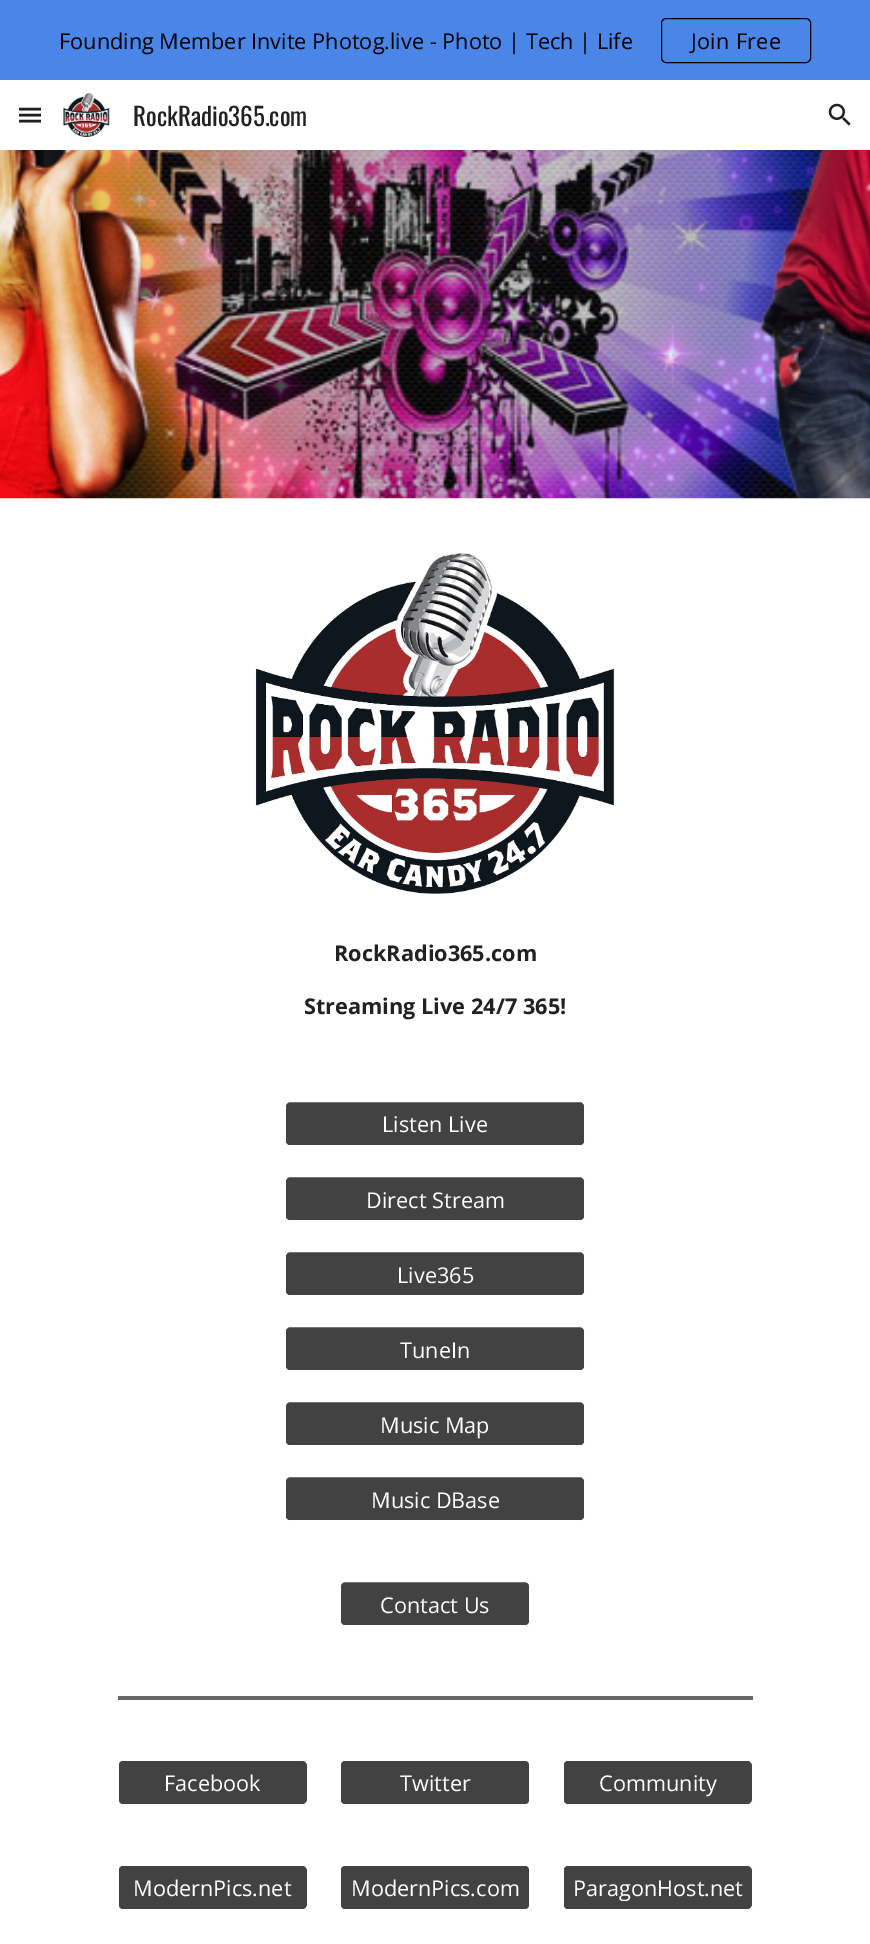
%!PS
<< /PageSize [870 1944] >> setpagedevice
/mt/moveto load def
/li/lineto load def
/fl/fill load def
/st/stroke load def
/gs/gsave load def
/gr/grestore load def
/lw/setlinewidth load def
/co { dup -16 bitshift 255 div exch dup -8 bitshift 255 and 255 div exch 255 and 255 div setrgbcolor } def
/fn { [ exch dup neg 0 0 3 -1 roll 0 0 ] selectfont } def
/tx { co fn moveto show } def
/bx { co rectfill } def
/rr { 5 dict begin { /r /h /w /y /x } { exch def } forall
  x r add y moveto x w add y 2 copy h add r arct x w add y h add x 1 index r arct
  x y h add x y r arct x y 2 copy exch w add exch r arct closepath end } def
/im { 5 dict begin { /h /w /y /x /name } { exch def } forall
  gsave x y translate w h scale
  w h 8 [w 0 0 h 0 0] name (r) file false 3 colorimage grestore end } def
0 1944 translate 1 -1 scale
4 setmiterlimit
0 0 870 1944 16#FFFFFF bx
0 0 870 80 16#4A86E8 bx
16#000000 co
661.5 18.5 149 44 4.5 rr st
16#1F1F1F co
2.5 lw
19 109 mt 41 109 li 19 115 mt 41 115 li 19 121 mt 41 121 li st
(media/1.raw) 63 92 47 46 im
(media/2.raw) 828 103 23 23 im
(media/3.raw) 0 150 870 349 im
(media/4.raw) 255 553 360 341 im
16#424242 co
285.5 1101.5 299 44 4.5 rr gs fl gr
16#FFFFFF co
1 lw
st
16#424242 co
286 1103 298 42 4 rr fl
285.5 1176.5 299 44 4.5 rr gs fl gr
16#FFFFFF co
st
16#424242 co
286 1178 298 42 4 rr fl
285.5 1251.5 299 44 4.5 rr gs fl gr
16#FFFFFF co
st
16#424242 co
286 1253 298 42 4 rr fl
285.5 1326.5 299 44 4.5 rr gs fl gr
16#FFFFFF co
st
16#424242 co
286 1328 298 42 4 rr fl
285.5 1401.5 299 44 4.5 rr gs fl gr
16#FFFFFF co
st
16#424242 co
286 1403 298 42 4 rr fl
285.5 1476.5 299 44 4.5 rr gs fl gr
16#FFFFFF co
st
16#424242 co
286 1478 298 42 4 rr fl
340.5 1581.5 189 44 4.5 rr gs fl gr
16#FFFFFF co
st
16#424242 co
341 1583 188 42 4 rr fl
118 1696 635 4 16#686868 bx
16#424242 co
118.5 1760.5 189 44 4.5 rr gs fl gr
16#FFFFFF co
st
16#424242 co
119 1761 187 43 4 rr fl
341 1761 188 43 4 rr fl
563.5 1760.5 189 44 4.5 rr gs fl gr
16#FFFFFF co
st
16#424242 co
564 1761 187 43 4 rr fl
118.5 1865.5 189 44 4.5 rr gs fl gr
16#FFFFFF co
st
16#424242 co
119 1866 187 43 4 rr fl
341 1866 188 43 4 rr fl
563.5 1865.5 189 44 4.5 rr gs fl gr
16#FFFFFF co
st
16#424242 co
564 1866 187 43 4 rr fl
(Founding Member Invite Photog.live - Photo | Tech | Life) 59 49 /OpenSans-Regular 21.7 16#000000 tx
691 49 mt .25 0 (Join Free) ashow
(RockRadio365.com) 133 126 /Oswald-Regular 25 16#212121 tx
(RockRadio365.com) 334 961 /OpenSans-Bold 21.7 16#212121 tx
(Streaming Live 24/7 365!) 304 1014 /OpenSans-Bold 21.7 16#212121 tx
(Listen Live) 382 1132 /OpenSans-Regular 21.7 16#FFFFFF tx
(Direct Stream) 366 1208 /OpenSans-Regular 21.7 16#FFFFFF tx
(Live365) 397 1283 /OpenSans-Regular 21.7 16#FFFFFF tx
(TuneIn) 400 1358 /OpenSans-Regular 21.7 16#FFFFFF tx
(Music Map) 380 1433 /OpenSans-Regular 21.7 16#FFFFFF tx
(Music DBase) 371 1508 /OpenSans-Regular 21.7 16#FFFFFF tx
(Contact Us) 380 1613 /OpenSans-Regular 21.7 16#FFFFFF tx
(Facebook) 164 1791 /OpenSans-Regular 21.7 16#FFFFFF tx
(Twitter) 400 1791 /OpenSans-Regular 21.7 16#FFFFFF tx
(Community) 599 1791 /OpenSans-Regular 21.7 16#FFFFFF tx
(ModernPics.net) 133 1896 /OpenSans-Regular 21.7 16#FFFFFF tx
(ModernPics.com) 351 1896 /OpenSans-Regular 21.7 16#FFFFFF tx
gs
571 1874 173 27 rectclip
(ParagonHost.net) 573 1896 /OpenSans-Regular 21.7 16#FFFFFF tx
gr
showpage
